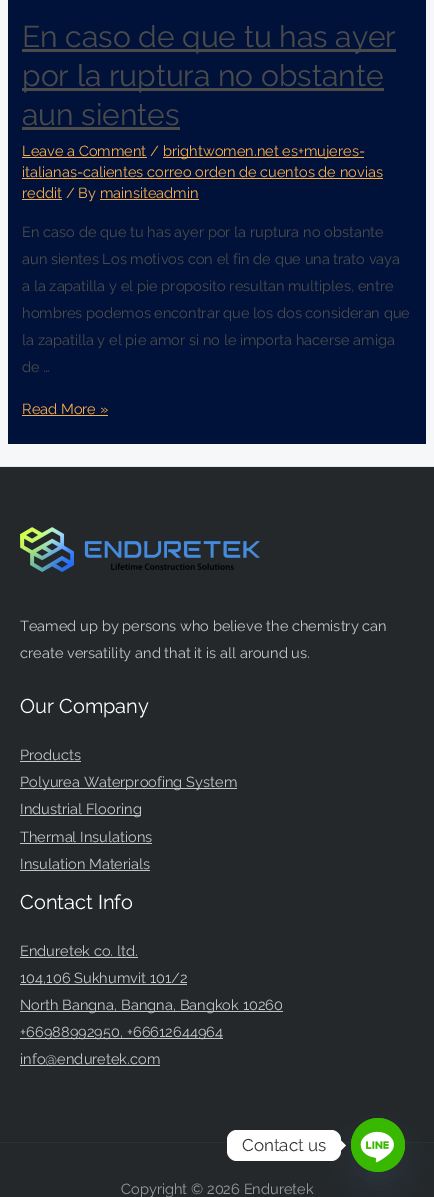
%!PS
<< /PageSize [434 1197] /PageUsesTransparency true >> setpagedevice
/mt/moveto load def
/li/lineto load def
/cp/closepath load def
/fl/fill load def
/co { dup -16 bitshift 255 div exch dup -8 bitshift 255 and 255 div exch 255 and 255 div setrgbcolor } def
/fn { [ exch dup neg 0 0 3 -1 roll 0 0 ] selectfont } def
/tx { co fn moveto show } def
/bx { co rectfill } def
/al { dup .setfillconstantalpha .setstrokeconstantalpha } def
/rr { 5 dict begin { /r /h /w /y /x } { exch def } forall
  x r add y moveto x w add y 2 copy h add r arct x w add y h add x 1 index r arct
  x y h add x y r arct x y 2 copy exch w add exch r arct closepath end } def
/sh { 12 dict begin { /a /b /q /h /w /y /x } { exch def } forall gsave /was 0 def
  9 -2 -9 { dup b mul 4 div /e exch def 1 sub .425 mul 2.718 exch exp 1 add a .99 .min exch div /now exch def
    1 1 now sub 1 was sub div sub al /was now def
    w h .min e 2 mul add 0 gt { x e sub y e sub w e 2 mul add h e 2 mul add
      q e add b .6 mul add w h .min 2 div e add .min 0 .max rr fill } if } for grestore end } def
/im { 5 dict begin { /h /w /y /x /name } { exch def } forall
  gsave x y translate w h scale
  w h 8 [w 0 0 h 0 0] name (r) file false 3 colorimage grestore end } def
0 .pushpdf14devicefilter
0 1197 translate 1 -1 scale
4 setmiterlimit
0 0 434 1197 16#F6F7F8 bx
8 0 418 444 16#00123A bx
22 49 374 3 16#4A4A4A bx
22 88 362 3 16#4A4A4A bx
22 127 158 3 16#4A4A4A bx
22 157 125 1 16#F9AD4A bx
163 157 201 1 16#F9AD4A bx
22 178 361 1 16#F9AD4A bx
22 199 40 1 16#F9AD4A bx
100 199 99 1 16#F9AD4A bx
22 415 86 1 16#F9AD4A bx
0 467 434 675 16#24282B bx
0 466 434 1 16#E6E6E6 bx
(media/1.raw) 20 527 240 45 im
20 761 61 1 16#C4C4C4 bx
20 788 217 1 16#C4C4C4 bx
20 815 121 1 16#C4C4C4 bx
20 843 132 1 16#C4C4C4 bx
20 870 130 1 16#C4C4C4 bx
20 957 118 1 16#C4C4C4 bx
20 984 167 1 16#C4C4C4 bx
20 1011 263 1 16#C4C4C4 bx
20 1038 203 1 16#C4C4C4 bx
20 1065 140 1 16#C4C4C4 bx
0 1143 434 54 16#24282B bx
0 1142 434 1 16#2C3033 bx
16#49687E co
351 1134 54 54 27 12 .16 sh
16#FFFFFF co
227 1130 114 31 10 rr fl
341 1150.5 mt 341 1140.5 li 346 1145.5 li cp fl
(media/2.raw) 351 1118 54 54 im
(En caso de que tu has ayer) 22 47 /Raleway-Regular 30 16#4A4A4A tx
(por la ruptura no obstante) 22 86 /Raleway-Regular 30 16#4A4A4A tx
(aun sientes) 22 125 /Raleway-Regular 30 16#4A4A4A tx
(Leave a Comment /) 22 156 /Raleway-Regular 14.6 16#F9AD4A tx
(brightwomen.net es+mujeres-) 163 156 /Raleway-Regular 14.6 16#F9AD4A tx
(italianas-calientes correo orden de cuentos de novias) 22 177 /Raleway-Regular 14.6 16#F9AD4A tx
(reddit / By mainsiteadmin) 22 198 /Raleway-Regular 14.6 16#F9AD4A tx
(En caso de que tu has ayer por la ruptura no obstante) 22 237 /Raleway-Regular 14.6 16#4A4A4A tx
(aun sientes Los motivos con el fin de que una trato vaya) 22 264 /Raleway-Regular 14.6 16#4A4A4A tx
(a la zapatilla y el pie proposito resultan multiples, entre) 22 291 /Raleway-Regular 14.6 16#4A4A4A tx
(hombres podemos encontrar que los dos consideran que) 22 318 /Raleway-Regular 14.6 16#4A4A4A tx
(la zapatilla y el pie amor si no le importa hacerse amiga) 22 345 /Raleway-Regular 14.6 16#4A4A4A tx
(de …) 22 372 /Raleway-Regular 14.6 16#4A4A4A tx
(Read More ») 22 414 /Raleway-Regular 14.6 16#F9AD4A tx
(Teamed up by persons who believe the chemistry can) 20 631 /Raleway-Regular 14.6 16#C4C4C4 tx
(create versatility and that it is all around us.) 20 658 /Raleway-Regular 14.6 16#C4C4C4 tx
(Our Company) 20 713 /Raleway-Regular 20 16#FFFFFF tx
(Products) 20 760 /Raleway-Regular 14.6 16#C4C4C4 tx
(Polyurea Waterproofing System) 20 787 /Raleway-Regular 14.6 16#C4C4C4 tx
(Industrial Flooring) 20 814 /Raleway-Regular 14.6 16#C4C4C4 tx
(Thermal Insulations) 20 842 /Raleway-Regular 14.6 16#C4C4C4 tx
(Insulation Materials) 20 869 /Raleway-Regular 14.6 16#C4C4C4 tx
(Contact Info) 20 909 /Raleway-Regular 20 16#FFFFFF tx
(Enduretek co. ltd.) 20 956 /Raleway-Regular 14.6 16#C4C4C4 tx
(104,106 Sukhumvit 101/2) 20 983 /Raleway-Regular 14.6 16#C4C4C4 tx
(North Bangna, Bangna, Bangkok 10260) 20 1010 /Raleway-Regular 14.6 16#C4C4C4 tx
(+66988992950, +66612644964) 20 1037 /Raleway-Regular 14.6 16#C4C4C4 tx
(info@enduretek.com) 20 1064 /Raleway-Regular 14.6 16#C4C4C4 tx
(Copyright © 2026 Enduretek) 121 1194 /Raleway-Regular 14.6 16#9A9A9A tx
(Contact us) 242 1151 /Raleway-Regular 17 16#333333 tx
.poppdf14devicefilter showpage
